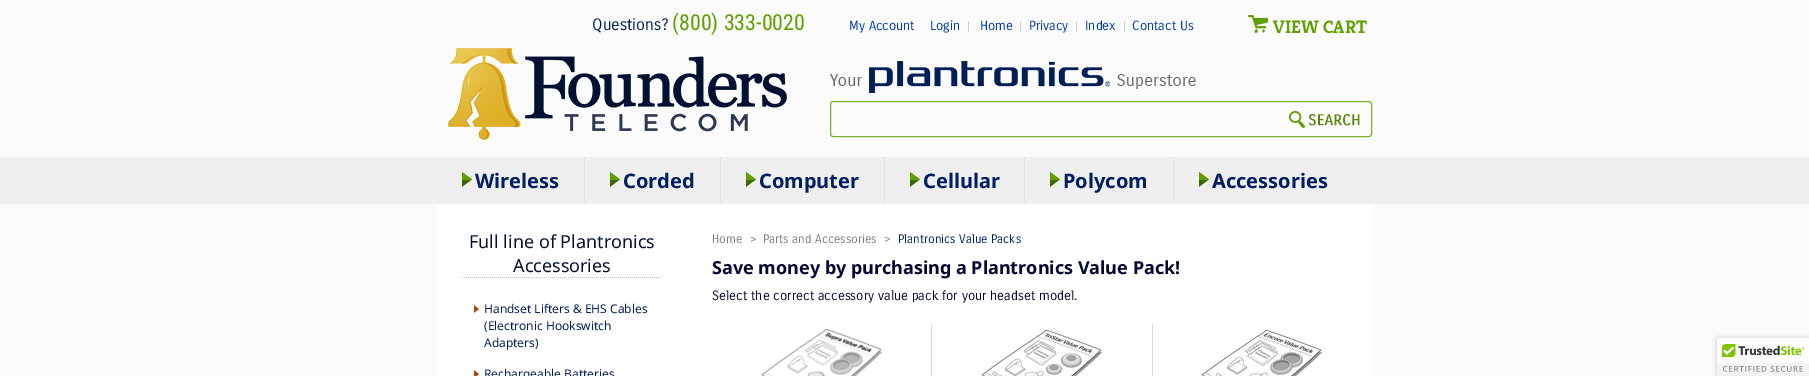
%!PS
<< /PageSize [1809 376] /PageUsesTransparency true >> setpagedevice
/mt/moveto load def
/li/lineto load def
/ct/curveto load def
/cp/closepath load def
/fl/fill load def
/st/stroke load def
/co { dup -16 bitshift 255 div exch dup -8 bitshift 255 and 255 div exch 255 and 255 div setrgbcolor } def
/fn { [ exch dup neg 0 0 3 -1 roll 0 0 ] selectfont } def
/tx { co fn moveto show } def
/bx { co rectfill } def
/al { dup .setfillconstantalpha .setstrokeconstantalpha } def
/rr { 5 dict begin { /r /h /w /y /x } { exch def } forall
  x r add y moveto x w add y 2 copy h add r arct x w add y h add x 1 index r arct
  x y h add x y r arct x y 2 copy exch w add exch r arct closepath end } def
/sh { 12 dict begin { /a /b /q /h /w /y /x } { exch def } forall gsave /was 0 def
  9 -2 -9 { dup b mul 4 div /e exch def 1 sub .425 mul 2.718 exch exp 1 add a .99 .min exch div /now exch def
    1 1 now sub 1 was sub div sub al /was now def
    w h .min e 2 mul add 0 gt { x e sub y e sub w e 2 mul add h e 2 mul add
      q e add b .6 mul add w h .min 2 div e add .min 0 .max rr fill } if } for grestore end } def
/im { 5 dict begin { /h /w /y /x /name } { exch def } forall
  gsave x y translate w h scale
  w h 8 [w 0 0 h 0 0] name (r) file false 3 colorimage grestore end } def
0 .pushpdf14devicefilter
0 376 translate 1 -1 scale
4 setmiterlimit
0 0 1809 376 16#FBFBFB bx
0 157 1809 47 16#EFEFEF bx
(media/1.raw) 1248 15 20 18 im
(media/2.raw) 447 48 340 92 im
(media/3.raw) 830 61 366 32 im
16#7BB02C co
830.5 101.5 541 35 2.5 rr st
(media/4.raw) 1289 111 71 17 im
437 204 935 172 16#FFFFFF bx
(media/5.raw) 462 172 10 15 im
584 157 1 47 16#E4E4E4 bx
(media/5.raw) 610 172 10 15 im
720 157 1 47 16#E4E4E4 bx
(media/5.raw) 746 172 10 15 im
884 157 1 47 16#E4E4E4 bx
(media/5.raw) 910 172 10 15 im
1024 157 1 47 16#E4E4E4 bx
(media/5.raw) 1050 172 10 15 im
1173 157 1 47 16#E4E4E4 bx
(media/5.raw) 1199 172 10 15 im
16#C8C8C8 co
[1 1] 0 setdash
462 277.5 mt 662 277.5 li st
(media/6.raw) 474 305 6 8 im
(media/7.raw) 474 370 6 6 im
(media/8.raw) 762 329 120 47 im
931 324 1 52 16#D9D9D9 bx
(media/9.raw) 982 330 120 46 im
1152 324 1 52 16#D9D9D9 bx
(media/10.raw) 1202 330 120 46 im
16#000000 co
1717 338 92 38 2 2.5 .2 sh
16#FFFFFF co
1719 338 mt 1809 338 li 1809 376 li 1717 376 li 1717 340 li 1717 339 1718 338 1719 338 ct cp fl
(media/11.raw) 1717 338 92 38 im
(Questions?) 592 30 /CarroisGothic-Regular 16 16#011E58 tx
(\(800\) 333-0020) 672 30 /RobotoCondensed-Regular 22 16#5FA000 tx
(My Account) 849 30 /CarroisGothic-Regular 13 16#023AA7 tx
(Login) 930 30 /CarroisGothic-Regular 13 16#023AA7 tx
(|) 967 30 /LiberationSans-Regular 12 16#D1D1D1 tx
(Home) 980 30 /CarroisGothic-Regular 13 16#023AA7 tx
(|) 1019 30 /LiberationSans-Regular 12 16#D1D1D1 tx
(Privacy) 1029 30 /CarroisGothic-Regular 13 16#023AA7 tx
(|) 1075 30 /LiberationSans-Regular 12 16#D1D1D1 tx
(Index) 1085 30 /CarroisGothic-Regular 13 16#023AA7 tx
(|) 1123 30 /LiberationSans-Regular 12 16#D1D1D1 tx
(Contact Us) 1132 30 /CarroisGothic-Regular 13 16#023AA7 tx
(VIEW CART) 1273 33 /Kreon-Bold 18 16#5FA000 tx
(Wireless) 475 188 /NotoSans-Bold 20 16#011E64 tx
(Corded) 623 188 /NotoSans-Bold 20 16#011E64 tx
(Computer) 759 188 /NotoSans-Bold 20 16#011E64 tx
(Cellular) 923 188 /NotoSans-Bold 20 16#011E64 tx
(Polycom) 1063 188 /NotoSans-Bold 20 16#011E64 tx
(Accessories) 1212 188 /NotoSans-Bold 20 16#011E64 tx
(Full line of Plantronics) 469 248 /NotoSans-Regular 18 16#011132 tx
(Accessories) 513 272 /NotoSans-Regular 18 16#011132 tx
(Handset Lifters & EHS Cables) 484 313 /NotoSans-Regular 12 16#011E58 tx
(\(Electronic Hookswitch) 484 330 /NotoSans-Regular 12 16#011E58 tx
(Adapters\)) 484 347 /NotoSans-Regular 12 16#011E58 tx
(Rechargeable Batteries) 484 378 /NotoSans-Regular 12 16#011E58 tx
(Home) 712 243 /CarroisGothic-Regular 12 16#7C7C7C tx
(>) 750 243 /CarroisGothic-Regular 12 16#7C7C7C tx
(Parts and Accessories) 763 243 /CarroisGothic-Regular 12 16#7C7C7C tx
(>) 884 243 /CarroisGothic-Regular 12 16#7C7C7C tx
(Plantronics Value Packs) 898 243 /CarroisGothic-Regular 12 16#011E64 tx
(Save money by purchasing a Plantronics Value Pack!) 712 274 /NotoSans-Bold 18 16#020933 tx
(Select the correct accessory value pack for your headset model.) 712 300 /CarroisGothic-Regular 13 16#020933 tx
.poppdf14devicefilter showpage
